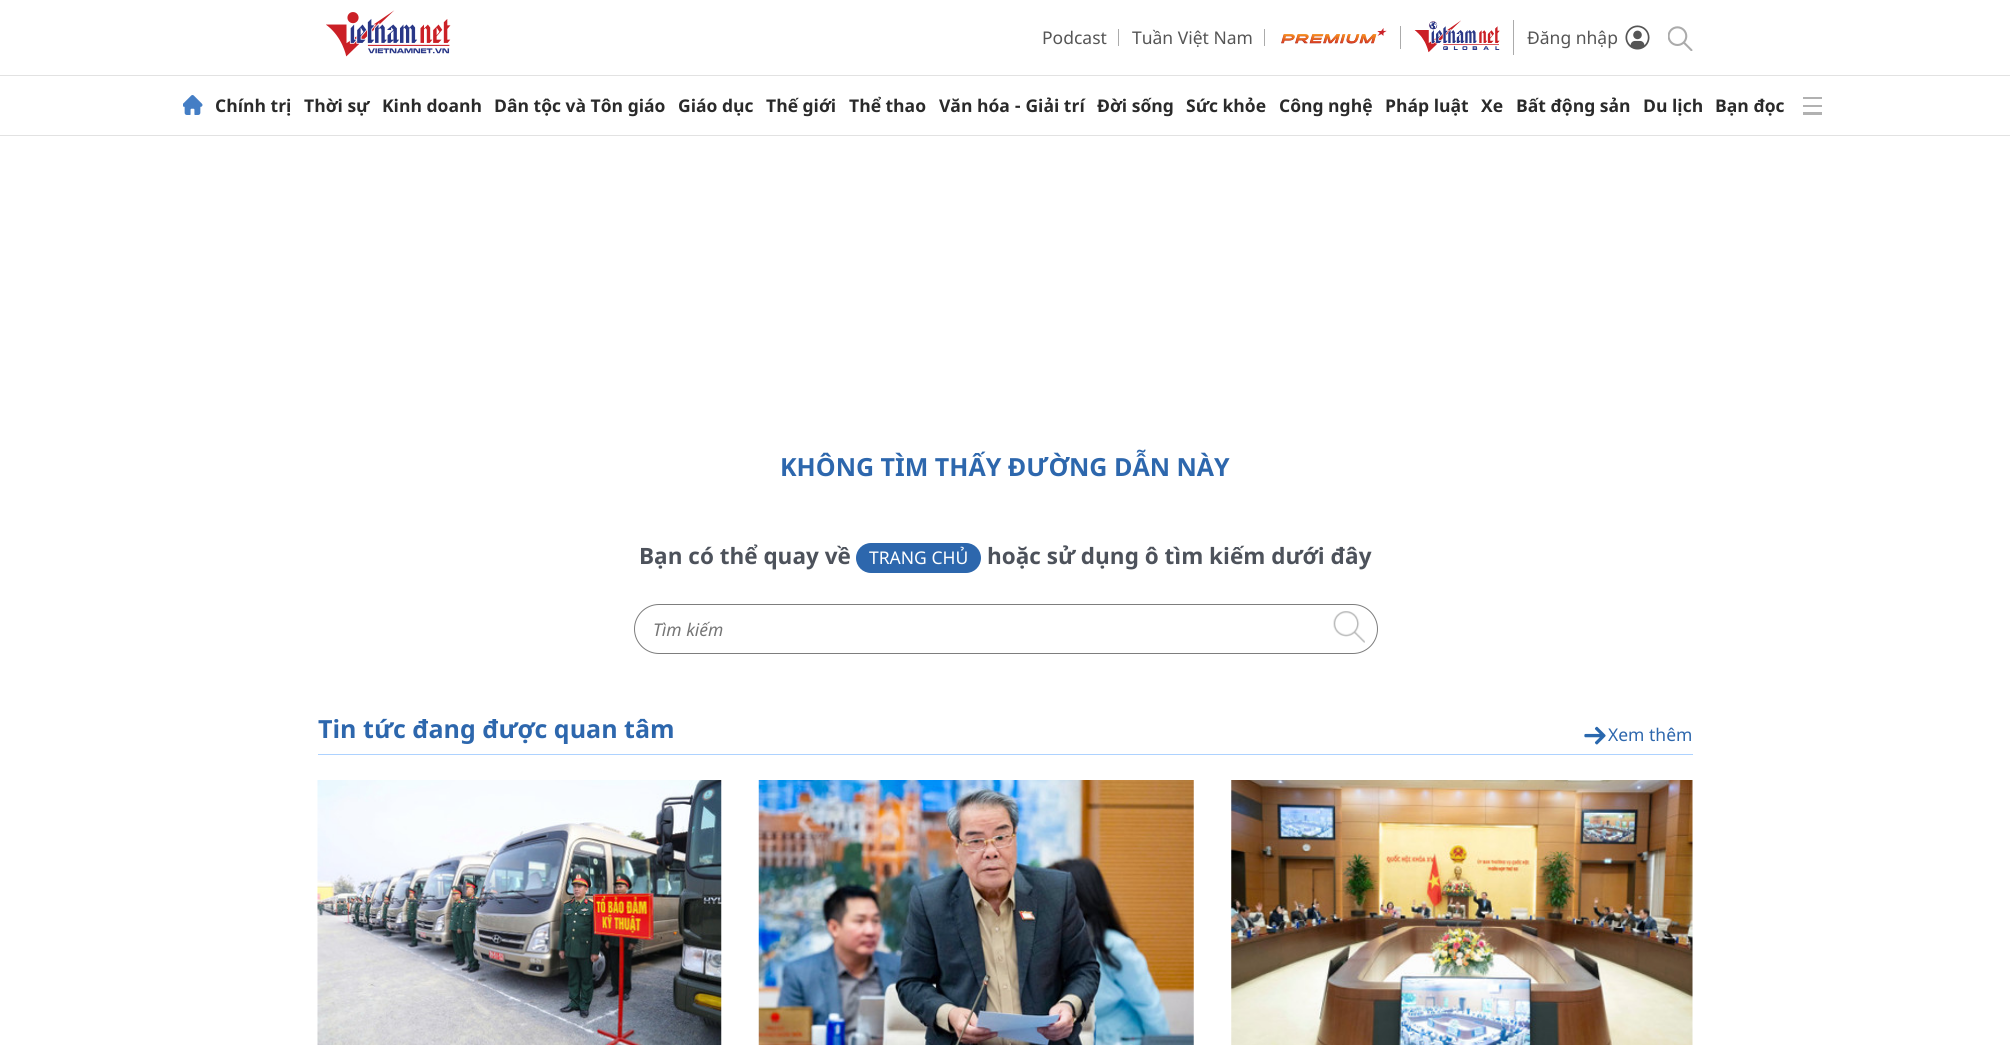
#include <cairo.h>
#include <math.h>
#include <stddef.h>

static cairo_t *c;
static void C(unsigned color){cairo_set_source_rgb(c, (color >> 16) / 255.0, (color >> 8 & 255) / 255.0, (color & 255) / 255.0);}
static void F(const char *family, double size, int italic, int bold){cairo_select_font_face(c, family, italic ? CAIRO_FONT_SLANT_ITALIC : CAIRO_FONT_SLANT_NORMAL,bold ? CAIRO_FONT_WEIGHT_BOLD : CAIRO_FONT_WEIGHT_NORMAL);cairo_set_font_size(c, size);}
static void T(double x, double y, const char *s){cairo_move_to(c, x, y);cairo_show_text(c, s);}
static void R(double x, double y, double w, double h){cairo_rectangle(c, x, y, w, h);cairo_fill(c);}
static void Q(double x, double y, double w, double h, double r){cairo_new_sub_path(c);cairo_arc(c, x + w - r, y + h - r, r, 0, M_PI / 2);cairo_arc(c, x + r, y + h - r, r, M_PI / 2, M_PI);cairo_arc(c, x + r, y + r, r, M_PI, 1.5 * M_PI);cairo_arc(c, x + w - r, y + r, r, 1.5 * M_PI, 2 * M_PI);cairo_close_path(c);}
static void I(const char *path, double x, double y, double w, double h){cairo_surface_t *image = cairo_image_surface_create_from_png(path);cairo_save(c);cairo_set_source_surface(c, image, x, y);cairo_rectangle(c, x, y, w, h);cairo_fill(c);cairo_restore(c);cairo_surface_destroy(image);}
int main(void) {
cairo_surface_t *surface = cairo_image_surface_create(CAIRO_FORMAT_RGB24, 2010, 1051);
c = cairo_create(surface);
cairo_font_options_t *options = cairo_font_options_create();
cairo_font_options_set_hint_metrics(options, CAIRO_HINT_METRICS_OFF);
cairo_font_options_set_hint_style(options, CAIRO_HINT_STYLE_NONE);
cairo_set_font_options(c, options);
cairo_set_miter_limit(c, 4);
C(0xffffff);
cairo_paint(c);
C(0xe2e2e2);
R(0,75,2010,1);
I("1.png",326,10,125,47);
F("Noto Sans",17.5,0,0);
C(0x555555);
T(1042,44,"Podcast");
C(0xababab);
R(1118,29,1,17);
C(0x555555);
T(1132,44,"Tuần Việt Nam");
C(0xababab);
R(1264,29,1,17);
I("2.png",1281,28,106,16);
R(1400,26,1,23);
I("3.png",1414,20,86,33);
R(1513,20,1,35);
C(0x555555);
T(1527,44,"Đăng nhập");
I("4.png",1625,25,25,25);
I("5.png",1668,26,25,25);
C(0xe2e2e2);
R(0,135,2010,1);
I("6.png",183,95,20,20);
F("Noto Sans",17.5,0,1);
C(0x2a2a2a);
T(215,112,"Chính trị");
T(304,112,"Thời sự");
T(382,112,"Kinh doanh");
T(494,112,"Dân tộc và Tôn giáo");
T(678,112,"Giáo dục");
T(766,112,"Thế giới");
T(849,112,"Thể thao");
T(939,112,"Văn hóa - Giải trí");
T(1097,112,"Đời sống");
T(1186,112,"Sức khỏe");
T(1279,112,"Công nghệ");
T(1385,112,"Pháp luật");
T(1481,112,"Xe");
T(1516,112,"Bất động sản");
T(1643,112,"Du lịch");
T(1715,112,"Bạn đọc");
C(0xb1b1b1);
R(1803,97,19,2);
R(1803,105,19,2);
R(1803,112,19,3);
F("Noto Sans",25,0,1);
C(0x2d67ad);
T(780,476,"KHÔNG TÌM THẤY ĐƯỜNG DẪN NÀY");
F("Noto Sans",22.5,0,1);
C(0x4d525b);
T(639,564,"Bạn có thể quay về");
C(0x2d67ad);
Q(856,543,125,30,15);
cairo_fill(c);
F("Noto Sans",17.5,0,0);
C(0xffffff);
T(869,564,"TRANG CHỦ");
F("Noto Sans",22.5,0,1);
C(0x4d525b);
T(987,564,"hoặc sử dụng ô tìm kiếm dưới đây");
Q(634.5,604.5,743,49,24.5);
C(0x7d7d7d);
cairo_set_line_width(c,1);
cairo_stroke(c);
F("Noto Sans",17.5,1,0);
C(0x757575);
T(653,636,"Tìm kiếm");
I("7.png",1333,611,32,32);
C(0xadd2ff);
R(318,754,1375,1);
F("Noto Sans",25,0,1);
C(0x2d67ad);
T(318,738,"Tin tức đang được quan tâm");
I("8.png",1584,726,22,19);
F("Noto Sans",17.5,0,0);
T(1608,741,"Xem thêm");
I("9.png",317,780,405,265);
I("10.png",758,780,436,265);
I("11.png",1231,780,462,265);
cairo_surface_write_to_png(surface, "o.png");
cairo_font_options_destroy(options);
cairo_destroy(c);
cairo_surface_destroy(surface);
return 0;
}
